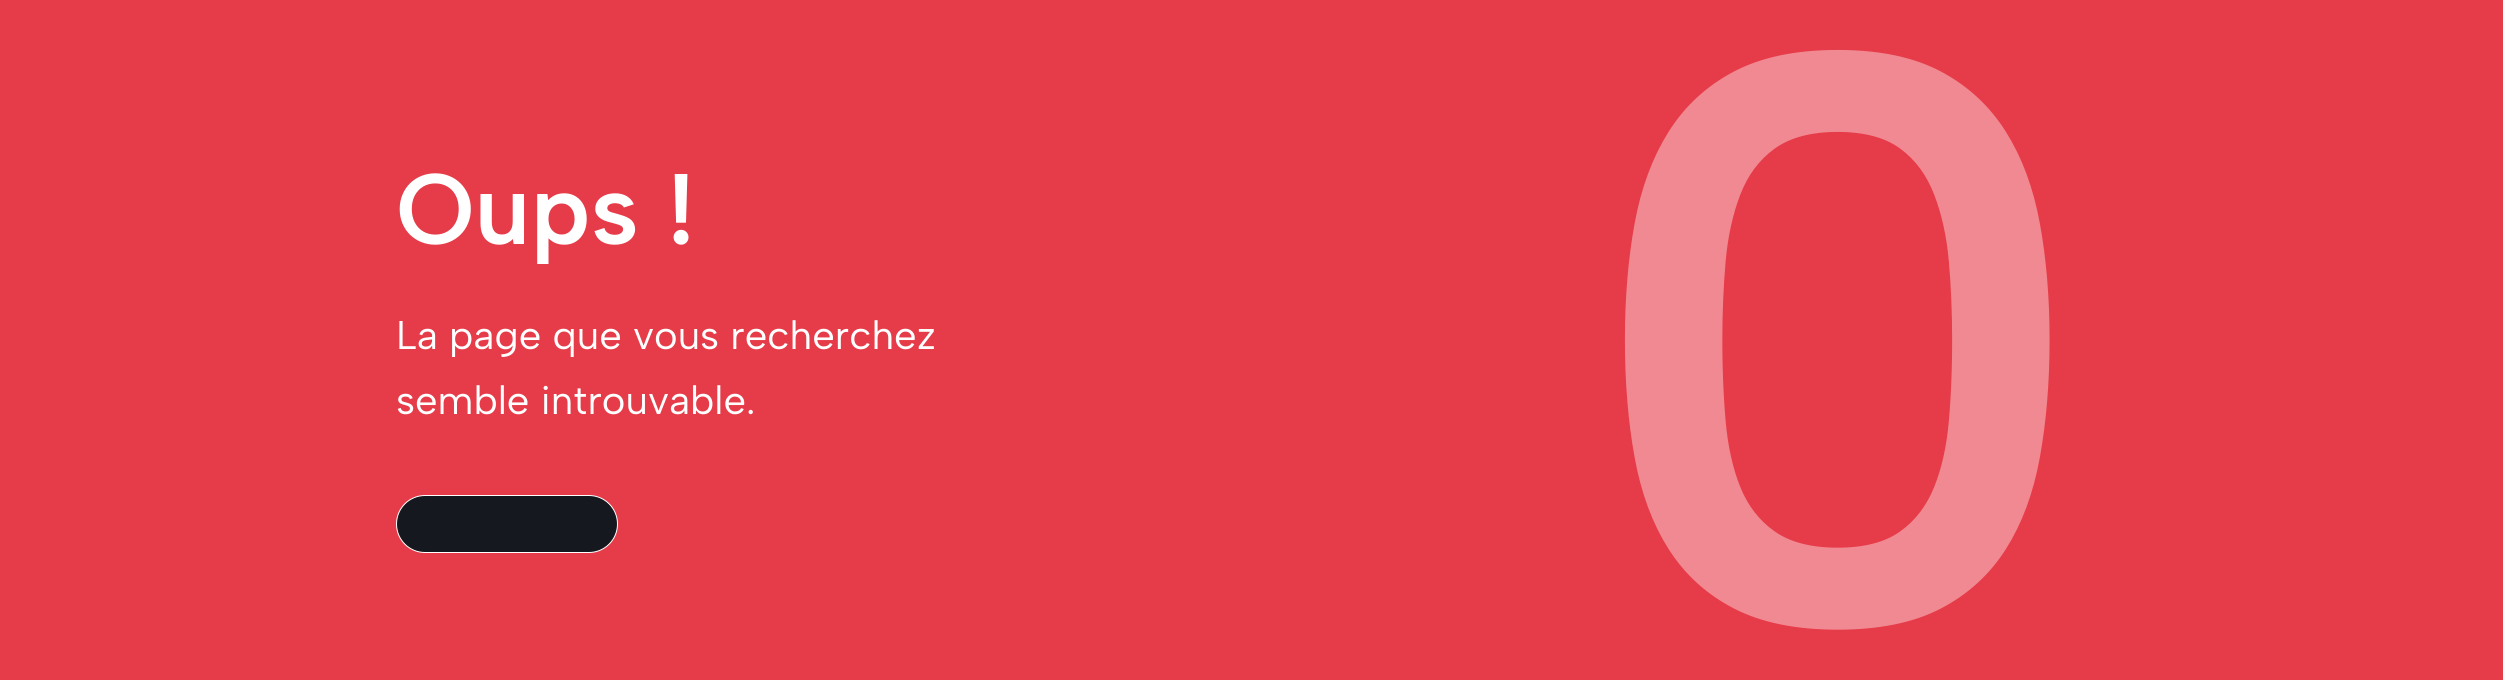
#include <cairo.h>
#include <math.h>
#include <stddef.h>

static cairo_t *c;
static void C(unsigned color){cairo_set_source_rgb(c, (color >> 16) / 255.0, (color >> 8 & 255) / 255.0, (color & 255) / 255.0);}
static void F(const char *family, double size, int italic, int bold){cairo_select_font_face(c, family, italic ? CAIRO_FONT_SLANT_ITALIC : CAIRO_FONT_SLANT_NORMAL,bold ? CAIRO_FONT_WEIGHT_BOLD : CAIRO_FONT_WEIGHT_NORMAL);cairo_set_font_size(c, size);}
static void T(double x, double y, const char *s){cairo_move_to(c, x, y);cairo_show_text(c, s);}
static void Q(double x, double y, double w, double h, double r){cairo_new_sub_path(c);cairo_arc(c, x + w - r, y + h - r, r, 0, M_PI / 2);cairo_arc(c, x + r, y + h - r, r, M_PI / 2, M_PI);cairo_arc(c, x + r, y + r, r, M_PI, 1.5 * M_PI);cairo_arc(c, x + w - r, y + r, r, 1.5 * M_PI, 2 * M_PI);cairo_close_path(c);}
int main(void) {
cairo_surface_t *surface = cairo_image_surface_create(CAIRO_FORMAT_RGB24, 2503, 680);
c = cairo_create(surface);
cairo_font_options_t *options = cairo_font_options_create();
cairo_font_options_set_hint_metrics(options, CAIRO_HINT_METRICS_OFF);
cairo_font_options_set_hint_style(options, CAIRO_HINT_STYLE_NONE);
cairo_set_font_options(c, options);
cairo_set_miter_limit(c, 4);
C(0xe63b48);
cairo_paint(c);
F("Albert Sans SemiBold",100,0,0);
C(0xffffff);
T(396,244,"Oups !");
F("Albert Sans",40,0,0);
T(396,349,"La page que vous recherchez");
T(396,414,"semble introuvable.");
C(0x16181f);
Q(396.5,495.5,221,57,28.5);
cairo_fill_preserve(c);
C(0xffffff);
cairo_set_line_width(c,1);
cairo_stroke(c);
F("Albert Sans SemiBold",812,0,0);
C(0xf08991);
T(1577,624,"0");
cairo_surface_write_to_png(surface, "o.png");
cairo_font_options_destroy(options);
cairo_destroy(c);
cairo_surface_destroy(surface);
return 0;
}
